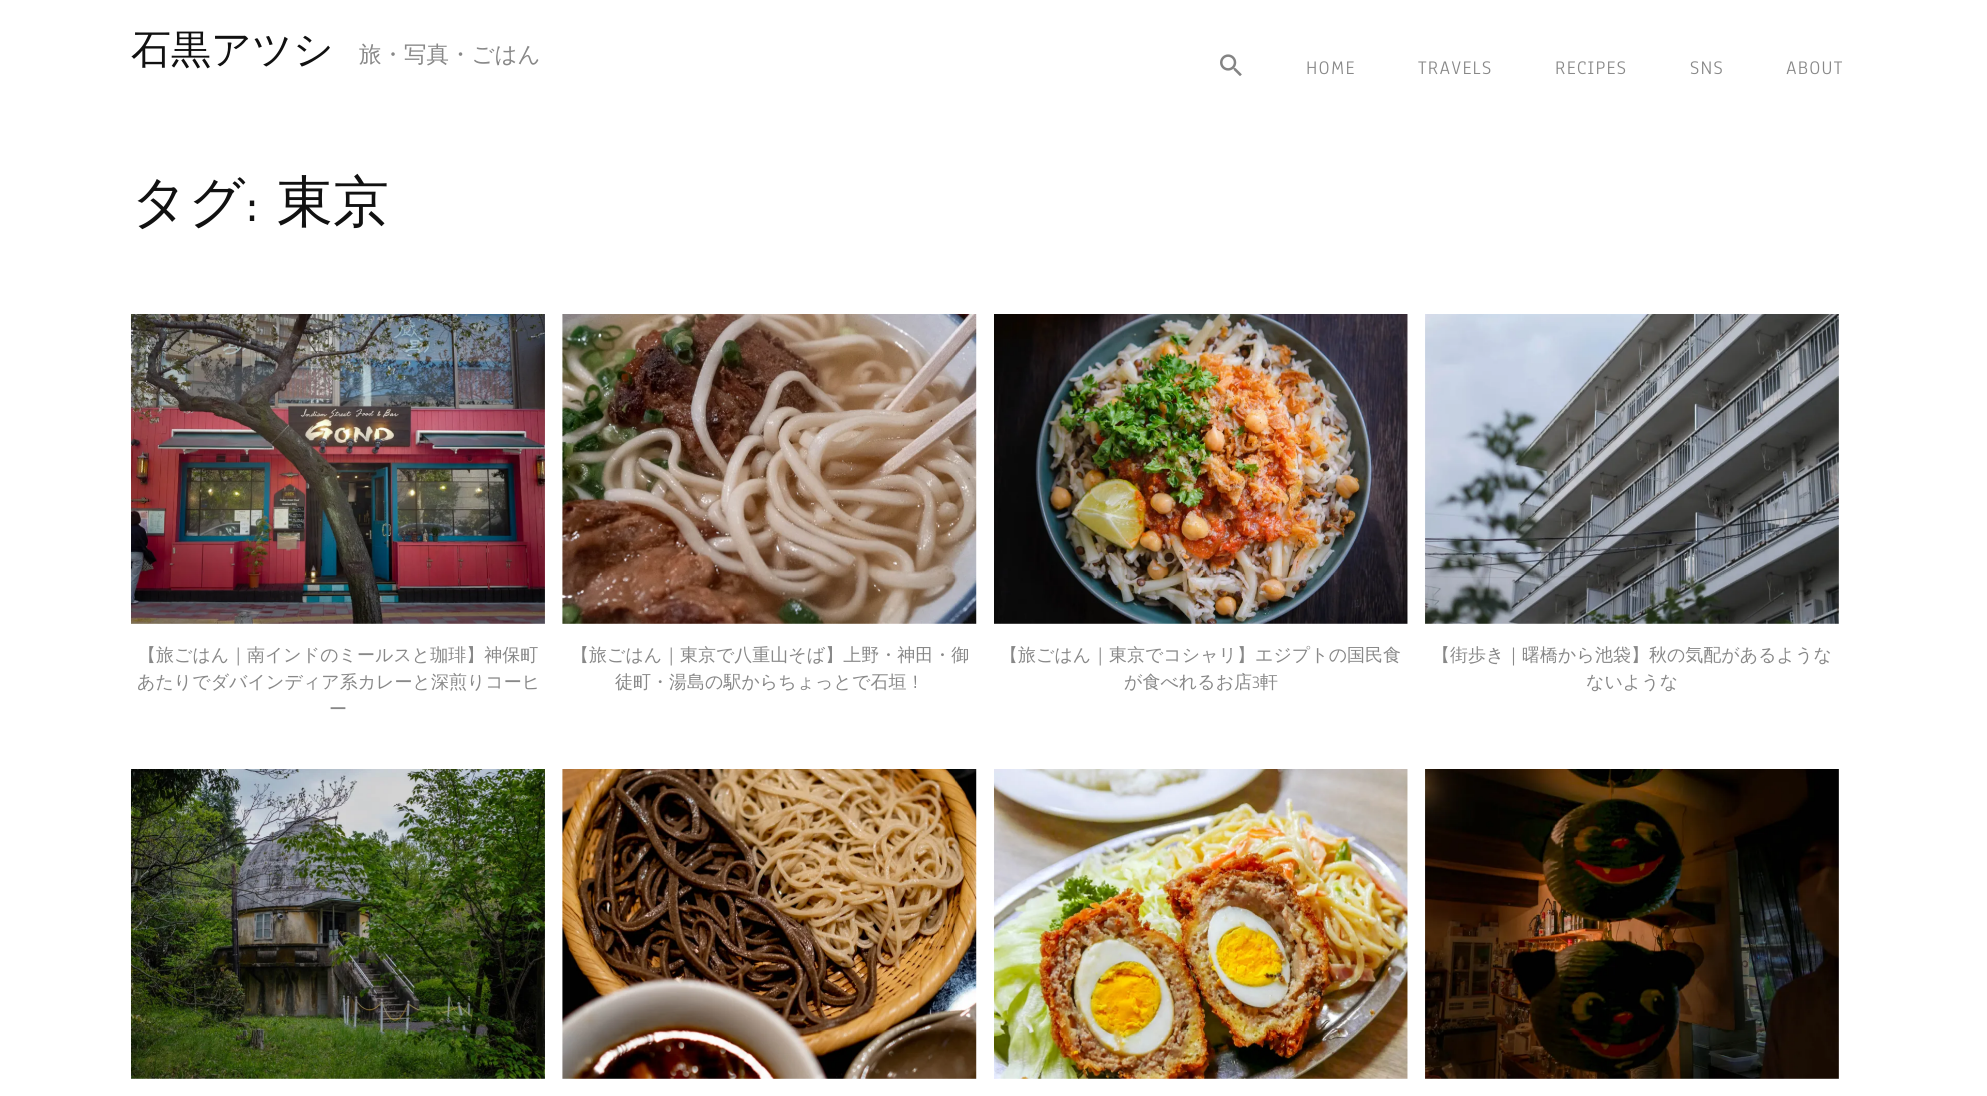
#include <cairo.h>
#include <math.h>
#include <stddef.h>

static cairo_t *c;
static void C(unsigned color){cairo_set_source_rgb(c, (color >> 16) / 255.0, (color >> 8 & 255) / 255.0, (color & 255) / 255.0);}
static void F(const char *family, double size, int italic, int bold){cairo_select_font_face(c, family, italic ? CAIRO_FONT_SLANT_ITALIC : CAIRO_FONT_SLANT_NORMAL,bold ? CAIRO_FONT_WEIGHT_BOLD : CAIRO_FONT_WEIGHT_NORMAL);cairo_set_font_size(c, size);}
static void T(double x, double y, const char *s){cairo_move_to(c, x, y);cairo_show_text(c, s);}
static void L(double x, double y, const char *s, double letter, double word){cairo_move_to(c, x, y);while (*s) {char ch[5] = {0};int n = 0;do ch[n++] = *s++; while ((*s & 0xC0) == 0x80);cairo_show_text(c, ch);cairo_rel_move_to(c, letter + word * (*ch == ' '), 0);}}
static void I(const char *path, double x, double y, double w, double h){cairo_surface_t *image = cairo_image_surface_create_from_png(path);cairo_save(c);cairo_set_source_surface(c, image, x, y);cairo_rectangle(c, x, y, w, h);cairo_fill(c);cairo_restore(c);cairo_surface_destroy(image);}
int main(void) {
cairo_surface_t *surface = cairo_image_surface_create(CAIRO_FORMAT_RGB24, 1987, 1096);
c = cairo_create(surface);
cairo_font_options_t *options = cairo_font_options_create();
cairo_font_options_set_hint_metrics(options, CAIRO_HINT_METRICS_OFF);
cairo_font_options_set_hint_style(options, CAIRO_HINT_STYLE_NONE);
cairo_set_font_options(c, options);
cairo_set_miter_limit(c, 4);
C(0xffffff);
cairo_paint(c);
F("WenQuanYi Zen Hei Medium",40,0,0);
C(0x111111);
T(131,63,"石黒アツシ");
F("WenQuanYi Zen Hei Medium",22.5,0,0);
C(0x888888);
T(359,62,"旅・写真・ごはん");
I("1.png",1220,54,22,22);
F("Anaheim",20,0,0);
L(1306,74,"HOME",1.25,0);
L(1418,74,"TRAVELS",1.25,0);
L(1555,74,"RECIPES",1.25,0);
L(1690,74,"SNS",1.25,0);
L(1786,74,"ABOUT",1.25,0);
F("WenQuanYi Zen Hei Medium",56,0,0);
C(0x111111);
T(131,221,"タグ");
F("Anaheim",56,0,0);
T(246,221,":");
F("WenQuanYi Zen Hei Medium",56,0,0);
T(277,221,"東京");
I("2.png",131,314,414,310);
F("WenQuanYi Zen Hei Medium",18,0,0);
C(0x888888);
T(138,661,"【旅ごはん｜南インドのミールスと珈琲】神保町");
T(137,688,"あたりでダバインディア系カレーと深煎りコーヒ");
T(329,715,"ー");
I("3.png",562,314,415,310);
T(571,661,"【旅ごはん｜東京で八重山そば】上野・神田・御");
T(615,688,"徒町・湯島の駅からちょっとで石垣！");
I("4.png",994,314,414,310);
T(1000,661,"【旅ごはん｜東京でコシャリ】エジプトの国民食");
T(1124,688,"が食べれるお店");
F("Anaheim",18,0,0);
T(1252,688,"3");
F("WenQuanYi Zen Hei Medium",18,0,0);
T(1260,688,"軒");
I("5.png",1425,314,414,310);
T(1432,661,"【街歩き｜曙橋から池袋】秋の気配があるような");
T(1586,688,"ないような");
I("6.png",131,769,414,310);
I("7.png",562,769,415,310);
I("8.png",994,769,414,310);
I("9.png",1425,769,414,310);
cairo_surface_write_to_png(surface, "o.png");
cairo_font_options_destroy(options);
cairo_destroy(c);
cairo_surface_destroy(surface);
return 0;
}
